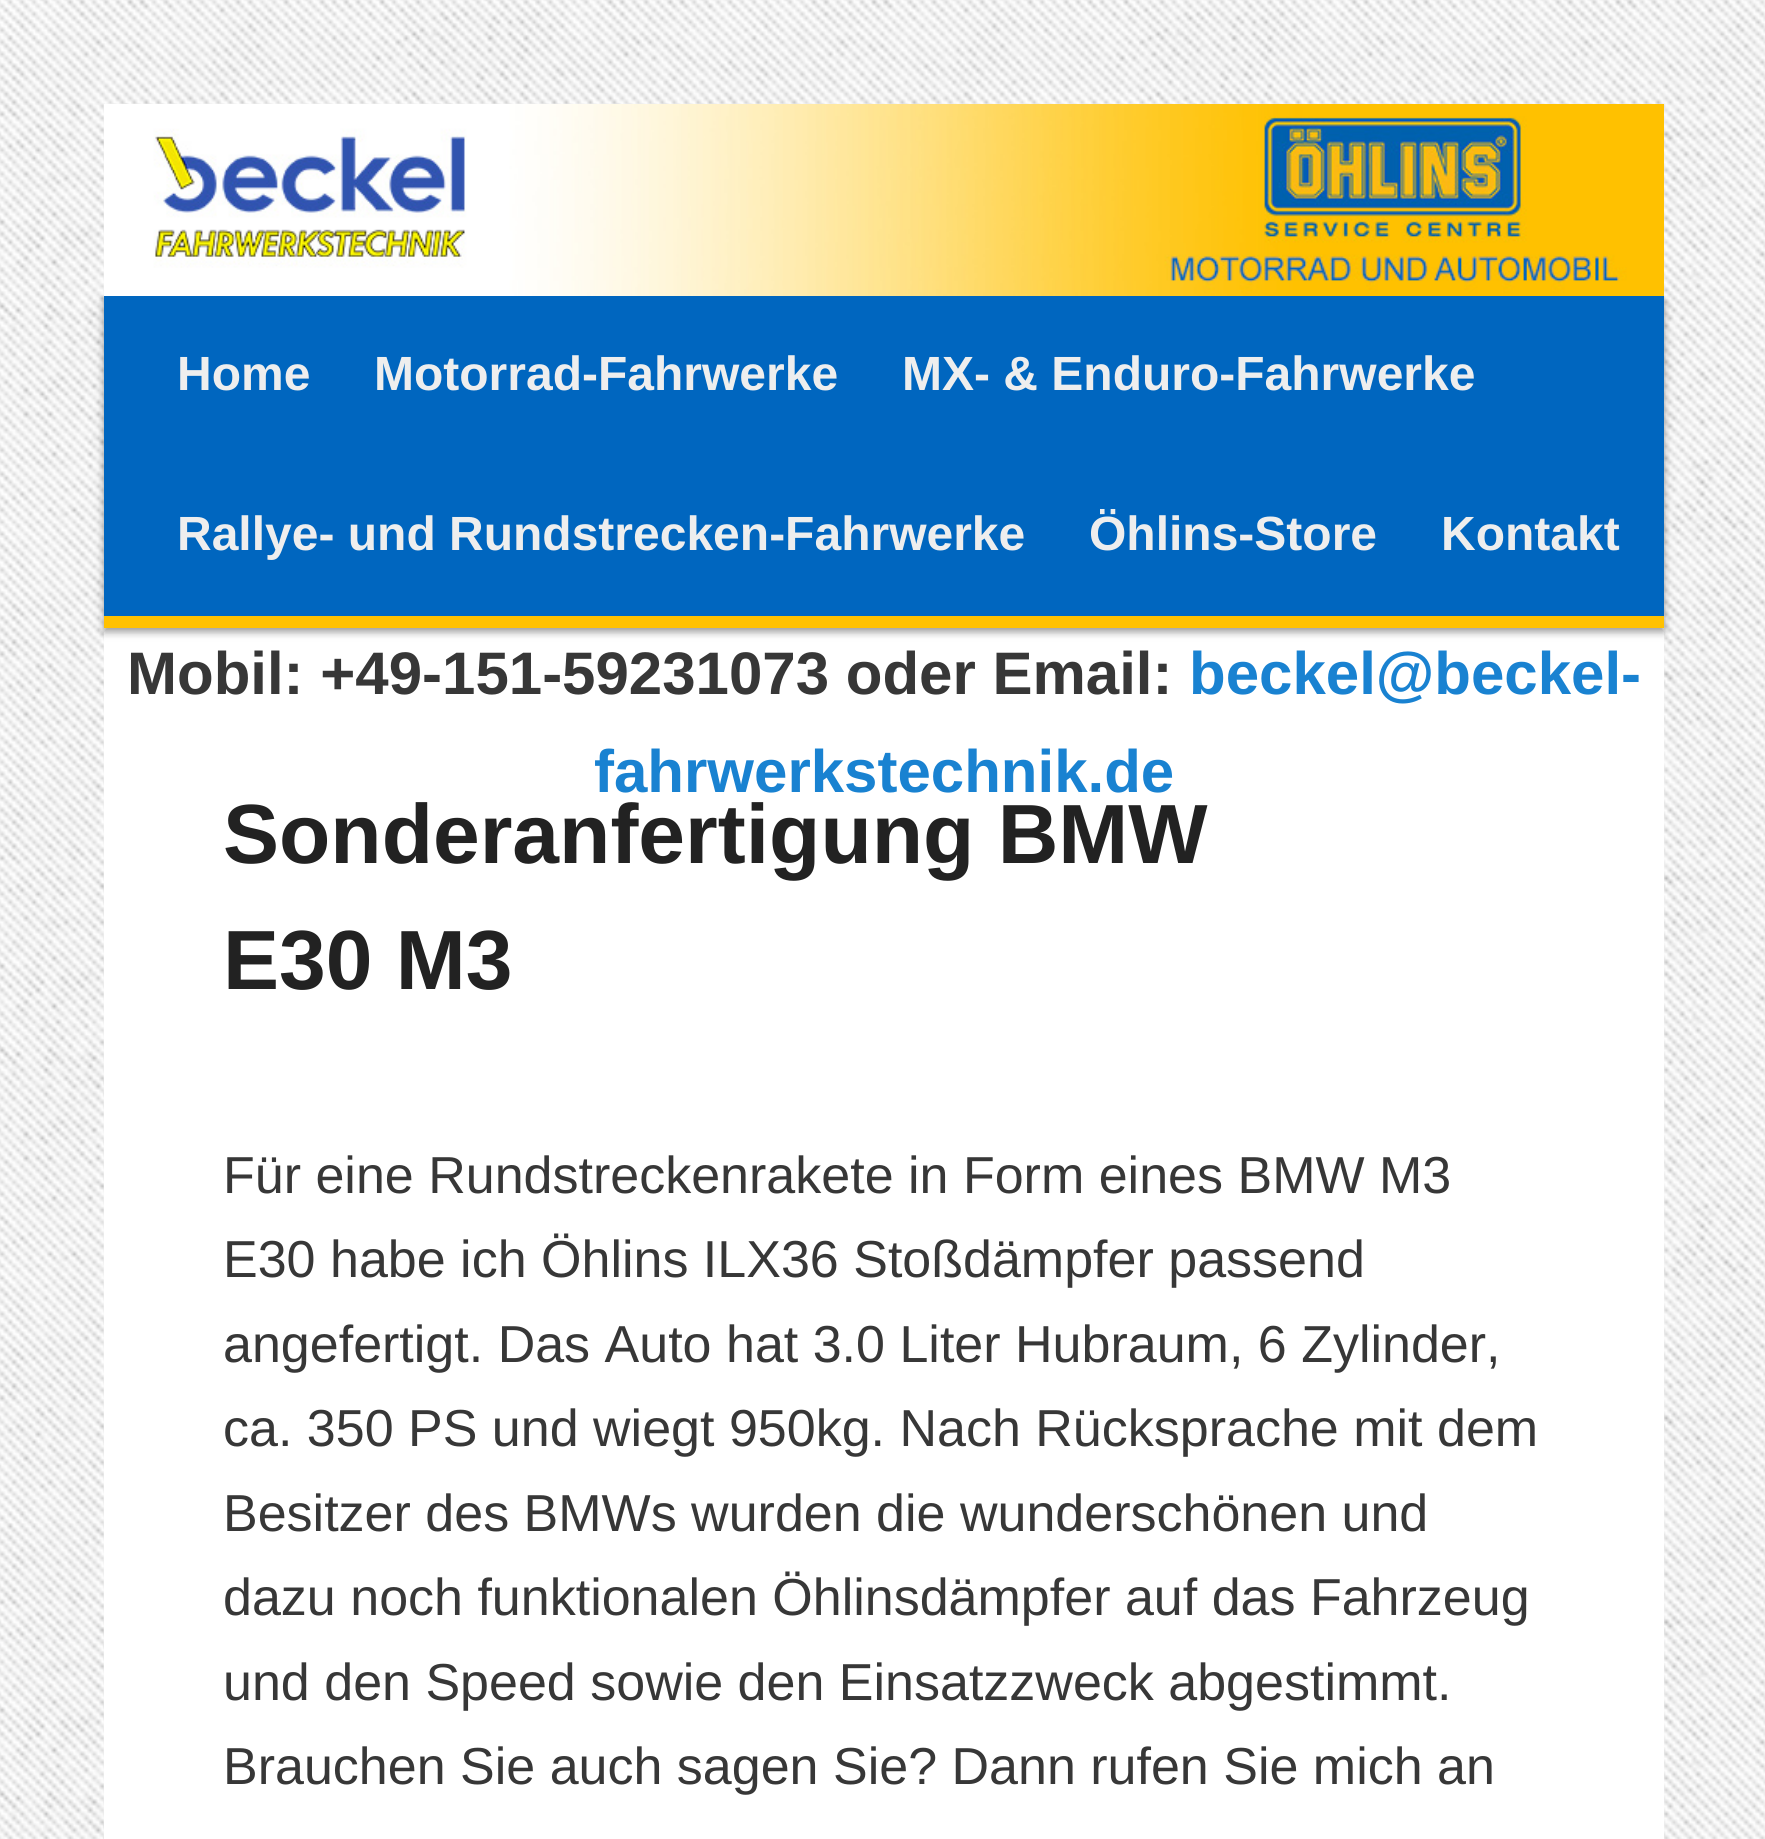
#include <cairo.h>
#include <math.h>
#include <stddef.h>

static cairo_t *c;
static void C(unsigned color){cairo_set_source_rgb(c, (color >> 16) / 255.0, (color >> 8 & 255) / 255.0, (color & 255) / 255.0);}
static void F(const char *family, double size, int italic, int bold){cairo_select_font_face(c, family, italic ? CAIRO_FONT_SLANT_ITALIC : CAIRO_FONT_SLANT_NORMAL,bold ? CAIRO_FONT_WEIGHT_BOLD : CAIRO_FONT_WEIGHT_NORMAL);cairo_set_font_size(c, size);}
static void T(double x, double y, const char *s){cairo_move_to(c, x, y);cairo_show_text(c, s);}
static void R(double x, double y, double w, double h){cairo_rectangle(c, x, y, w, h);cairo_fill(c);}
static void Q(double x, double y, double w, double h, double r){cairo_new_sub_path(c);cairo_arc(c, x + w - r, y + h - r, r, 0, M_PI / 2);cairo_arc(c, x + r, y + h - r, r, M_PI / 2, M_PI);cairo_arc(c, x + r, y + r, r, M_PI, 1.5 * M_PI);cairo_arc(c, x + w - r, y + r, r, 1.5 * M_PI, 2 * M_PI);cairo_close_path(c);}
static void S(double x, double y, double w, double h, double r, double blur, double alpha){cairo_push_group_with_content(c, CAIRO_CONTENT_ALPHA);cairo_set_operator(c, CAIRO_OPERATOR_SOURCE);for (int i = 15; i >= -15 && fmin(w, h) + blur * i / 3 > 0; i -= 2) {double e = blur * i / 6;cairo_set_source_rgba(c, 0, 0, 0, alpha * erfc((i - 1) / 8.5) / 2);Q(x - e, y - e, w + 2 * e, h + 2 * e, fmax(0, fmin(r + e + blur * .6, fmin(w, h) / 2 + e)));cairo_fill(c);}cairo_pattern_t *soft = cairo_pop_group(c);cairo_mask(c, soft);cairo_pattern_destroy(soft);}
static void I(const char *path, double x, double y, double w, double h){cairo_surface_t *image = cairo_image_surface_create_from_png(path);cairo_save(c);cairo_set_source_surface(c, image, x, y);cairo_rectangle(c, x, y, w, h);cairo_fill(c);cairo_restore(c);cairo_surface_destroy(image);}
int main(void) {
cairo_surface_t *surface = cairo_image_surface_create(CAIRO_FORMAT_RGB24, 1765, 1839);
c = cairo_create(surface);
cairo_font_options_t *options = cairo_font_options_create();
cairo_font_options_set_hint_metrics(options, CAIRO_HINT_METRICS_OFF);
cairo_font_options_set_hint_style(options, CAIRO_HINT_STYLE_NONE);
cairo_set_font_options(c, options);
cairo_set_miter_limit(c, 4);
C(0xffffff);
cairo_paint(c);
I("1.png",0,0,1765,1839);
C(0xffffff);
R(104,628,1560,1211);
C(0x000000);
S(104,300,1560,332,0,4,.4);
I("2.png",104,104,1560,192);
C(0x0066bf);
R(104,296,1560,320);
C(0xffc100);
R(104,616,1560,12);
F("Liberation Sans",48,0,1);
C(0xeeeeee);
T(177,390,"Home");
T(374,390,"Motorrad-Fahrwerke");
T(902,390,"MX- & Enduro-Fahrwerke");
T(177,550,"Rallye- und Rundstrecken-Fahrwerke");
T(1089,550,"Öhlins-Store");
T(1441,550,"Kontakt");
F("Liberation Sans",60,0,1);
C(0x373737);
T(127,694,"Mobil: +49-151-59231073 oder Email:");
C(0x1982d1);
T(1189,694,"beckel@beckel-");
T(594,792,"fahrwerkstechnik.de");
F("Liberation Sans",84,0,1);
C(0x222222);
T(223,863,"Sonderanfertigung BMW");
T(223,989,"E30 M3");
F("Liberation Sans",52,0,0);
C(0x373737);
T(223,1193,"Für eine Rundstreckenrakete in Form eines BMW M3");
T(223,1277,"E30 habe ich Öhlins ILX36 Stoßdämpfer passend");
T(223,1362,"angefertigt. Das Auto hat 3.0 Liter Hubraum, 6 Zylinder,");
T(223,1446,"ca. 350 PS und wiegt 950kg. Nach Rücksprache mit dem");
T(223,1531,"Besitzer des BMWs wurden die wunderschönen und");
T(223,1615,"dazu noch funktionalen Öhlinsdämpfer auf das Fahrzeug");
T(223,1700,"und den Speed sowie den Einsatzzweck abgestimmt.");
T(223,1784,"Brauchen Sie auch sagen Sie? Dann rufen Sie mich an");
cairo_surface_write_to_png(surface, "o.png");
cairo_font_options_destroy(options);
cairo_destroy(c);
cairo_surface_destroy(surface);
return 0;
}
